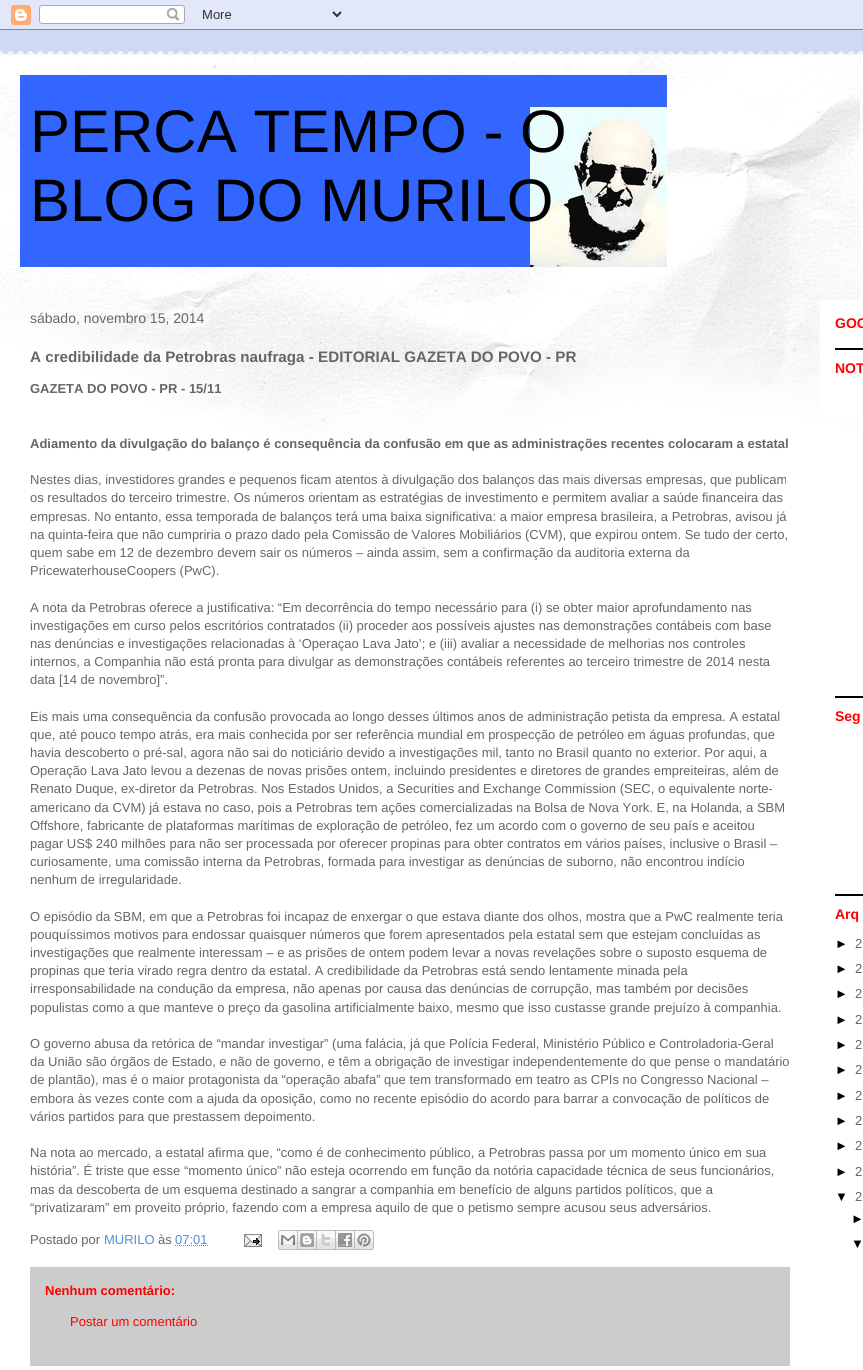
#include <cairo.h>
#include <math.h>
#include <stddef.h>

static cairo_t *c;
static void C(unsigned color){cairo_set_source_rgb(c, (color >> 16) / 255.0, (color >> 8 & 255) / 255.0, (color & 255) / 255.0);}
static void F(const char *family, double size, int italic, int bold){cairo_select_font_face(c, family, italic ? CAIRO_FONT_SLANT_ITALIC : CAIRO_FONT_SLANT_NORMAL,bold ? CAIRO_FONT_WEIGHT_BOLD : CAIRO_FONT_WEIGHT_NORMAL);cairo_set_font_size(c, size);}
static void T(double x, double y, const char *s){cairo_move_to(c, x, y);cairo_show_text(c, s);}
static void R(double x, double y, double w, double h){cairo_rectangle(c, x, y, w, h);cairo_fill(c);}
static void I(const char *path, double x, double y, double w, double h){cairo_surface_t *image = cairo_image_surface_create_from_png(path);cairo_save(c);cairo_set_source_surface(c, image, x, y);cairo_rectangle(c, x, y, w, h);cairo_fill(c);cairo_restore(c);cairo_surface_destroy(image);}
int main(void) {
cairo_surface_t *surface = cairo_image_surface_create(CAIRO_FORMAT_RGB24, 863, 1370);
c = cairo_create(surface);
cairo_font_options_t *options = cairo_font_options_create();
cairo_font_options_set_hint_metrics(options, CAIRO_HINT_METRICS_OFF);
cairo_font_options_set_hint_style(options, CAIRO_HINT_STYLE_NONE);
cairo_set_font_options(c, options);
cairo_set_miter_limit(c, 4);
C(0xcfd9f6);
cairo_paint(c);
I("1.png",0,0,863,30);
I("2.png",0,51,863,4);
C(0xffffff);
R(0,55,863,1315);
I("3.png",0,55,863,392);
I("4.png",20,75,647,192);
F("Liberation Sans",60,0,0);
C(0x000000);
T(30,152,"PERCA TEMPO - O");
T(30,221,"BLOG DO MURILO");
C(0xffffff);
R(820,300,43,116);
F("Liberation Sans",14,0,0);
C(0x666666);
T(30,323,"sábado, novembro 15, 2014");
F("Liberation Sans",15.2,0,1);
T(30,362,"A credibilidade da Petrobras naufraga - EDITORIAL GAZETA DO POVO - PR");
F("Liberation Sans",13,0,1);
T(30,393,"GAZETA DO POVO - PR - 15/11");
T(30,448,"Adiamento da divulgação do balanço é consequência da confusão em que as administrações recentes colocaram a estatal");
F("Liberation Sans",13,0,0);
T(30,484,"Nestes dias, investidores grandes e pequenos ficam atentos à divulgação dos balanços das mais diversas empresas, que publicam");
T(30,502,"os resultados do terceiro trimestre. Os números orientam as estratégias de investimento e permitem avaliar a saúde financeira das");
T(30,521,"empresas. No entanto, essa temporada de balanços terá uma baixa significativa: a maior empresa brasileira, a Petrobras, avisou já");
T(30,539,"na quinta-feira que não cumpriria o prazo dado pela Comissão de Valores Mobiliários (CVM), que expirou ontem. Se tudo der certo,");
T(30,557,"quem sabe em 12 de dezembro devem sair os números – ainda assim, sem a confirmação da auditoria externa da");
T(30,575,"PricewaterhouseCoopers (PwC).");
T(30,612,"A nota da Petrobras oferece a justificativa: “Em decorrência do tempo necessário para (i) se obter maior aprofundamento nas");
T(30,630,"investigações em curso pelos escritórios contratados (ii) proceder aos possíveis ajustes nas demonstrações contábeis com base");
T(30,648,"nas denúncias e investigações relacionadas à ‘Operaçao Lava Jato’; e (iii) avaliar a necessidade de melhorias nos controles");
T(30,666,"internos, a Companhia não está pronta para divulgar as demonstrações contábeis referentes ao terceiro trimestre de 2014 nesta");
T(30,684,"data [14 de novembro]”.");
T(30,721,"Eis mais uma consequência da confusão provocada ao longo desses últimos anos de administração petista da empresa. A estatal");
T(30,739,"que, até pouco tempo atrás, era mais conhecida por ser referência mundial em prospecção de petróleo em águas profundas, que");
T(30,757,"havia descoberto o pré-sal, agora não sai do noticiário devido a investigações mil, tanto no Brasil quanto no exterior. Por aqui, a");
T(30,775,"Operação Lava Jato levou a dezenas de novas prisões ontem, incluindo presidentes e diretores de grandes empreiteiras, além de");
T(30,793,"Renato Duque, ex-diretor da Petrobras. Nos Estados Unidos, a Securities and Exchange Commission (SEC, o equivalente norte-");
T(30,812,"americano da CVM) já estava no caso, pois a Petrobras tem ações comercializadas na Bolsa de Nova York. E, na Holanda, a SBM");
T(30,830,"Offshore, fabricante de plataformas marítimas de exploração de petróleo, fez um acordo com o governo de seu país e aceitou");
T(30,848,"pagar US$ 240 milhões para não ser processada por oferecer propinas para obter contratos em vários países, inclusive o Brasil –");
T(30,866,"curiosamente, uma comissão interna da Petrobras, formada para investigar as denúncias de suborno, não encontrou indício");
T(30,884,"nenhum de irregularidade.");
T(30,921,"O episódio da SBM, em que a Petrobras foi incapaz de enxergar o que estava diante dos olhos, mostra que a PwC realmente teria");
T(30,939,"pouquíssimos motivos para endossar quaisquer números que forem apresentados pela estatal sem que estejam concluídas as");
T(30,957,"investigações que realmente interessam – e as prisões de ontem podem levar a novas revelações sobre o suposto esquema de");
T(30,975,"propinas que teria virado regra dentro da estatal. A credibilidade da Petrobras está sendo lentamente minada pela");
T(30,993,"irresponsabilidade na condução da empresa, não apenas por causa das denúncias de corrupção, mas também por decisões");
T(30,1012,"populistas como a que manteve o preço da gasolina artificialmente baixo, mesmo que isso custasse grande prejuízo à companhia.");
T(30,1048,"O governo abusa da retórica de “mandar investigar” (uma falácia, já que Polícia Federal, Ministério Público e Controladoria-Geral");
T(30,1066,"da União são órgãos de Estado, e não de governo, e têm a obrigação de investigar independentemente do que pense o mandatário");
T(30,1084,"de plantão), mas é o maior protagonista da “operação abafa” que tem transformado em teatro as CPIs no Congresso Nacional –");
T(30,1103,"embora às vezes conte com a ajuda da oposição, como no recente episódio do acordo para barrar a convocação de políticos de");
T(30,1121,"vários partidos para que prestassem depoimento.");
T(30,1157,"Na nota ao mercado, a estatal afirma que, “como é de conhecimento público, a Petrobras passa por um momento único em sua");
T(30,1175,"história”. É triste que esse “momento único” não esteja ocorrendo em função da notória capacidade técnica de seus funcionários,");
T(30,1194,"mas da descoberta de um esquema destinado a sangrar a companhia em benefício de alguns partidos políticos, que a");
T(30,1212,"“privatizaram” em proveito próprio, fazendo com a empresa aquilo de que o petismo sempre acusou seus adversários.");
T(30,1244,"Postado por");
C(0x538cd6);
T(104,1244,"MURILO");
C(0x666666);
T(158,1244,"às");
C(0x538cd6);
T(175,1244,"07:01");
cairo_new_path(c);
cairo_move_to(c,175,1245.5);
cairo_line_to(c,208,1245.5);
cairo_set_line_width(c,1);
cairo_set_dash(c,(double[]){1,1},2,0);
cairo_stroke(c);
I("5.png",244,1234,18,13);
I("6.png",278,1230,20,20);
I("7.png",298,1230,19,20);
I("8.png",317,1230,19,20);
I("9.png",336,1230,19,20);
I("10.png",355,1230,19,20);
C(0xcccccc);
R(30,1267,760,99);
F("Liberation Sans",13,0,1);
C(0xff0000);
T(45,1295,"Nenhum comentário:");
F("Liberation Sans",13,0,0);
T(70,1326,"Postar um comentário");
C(0x000000);
R(835,348,28,2);
F("Liberation Sans",14,0,1);
C(0xff0000);
T(835,328,"GOO");
C(0x000000);
R(835,696,28,2);
C(0xff0000);
T(835,373,"NOT");
C(0x000000);
R(835,894,28,2);
C(0xff0000);
T(835,721,"Seg");
T(835,919,"Arq");
F("Liberation Sans",13,0,0);
C(0x000000);
T(835,948,"►");
C(0x666666);
T(855,948,"2");
C(0x000000);
T(835,973,"►");
C(0x666666);
T(855,973,"2");
C(0x000000);
T(835,998,"►");
C(0x666666);
T(855,998,"2");
C(0x000000);
T(835,1024,"►");
C(0x666666);
T(855,1024,"2");
C(0x000000);
T(835,1049,"►");
C(0x666666);
T(855,1049,"2");
C(0x000000);
T(835,1074,"►");
C(0x666666);
T(855,1074,"2");
C(0x000000);
T(835,1100,"►");
C(0x666666);
T(855,1100,"2");
C(0x000000);
T(835,1125,"►");
C(0x666666);
T(855,1125,"2");
C(0x000000);
T(835,1150,"►");
C(0x666666);
T(855,1150,"2");
C(0x000000);
T(835,1176,"►");
C(0x666666);
T(855,1176,"2");
C(0x000000);
T(835,1201,"▼");
C(0x666666);
T(855,1201,"2");
C(0x000000);
T(851,1223,"►");
T(851,1248,"▼");
cairo_surface_write_to_png(surface, "o.png");
cairo_font_options_destroy(options);
cairo_destroy(c);
cairo_surface_destroy(surface);
return 0;
}
